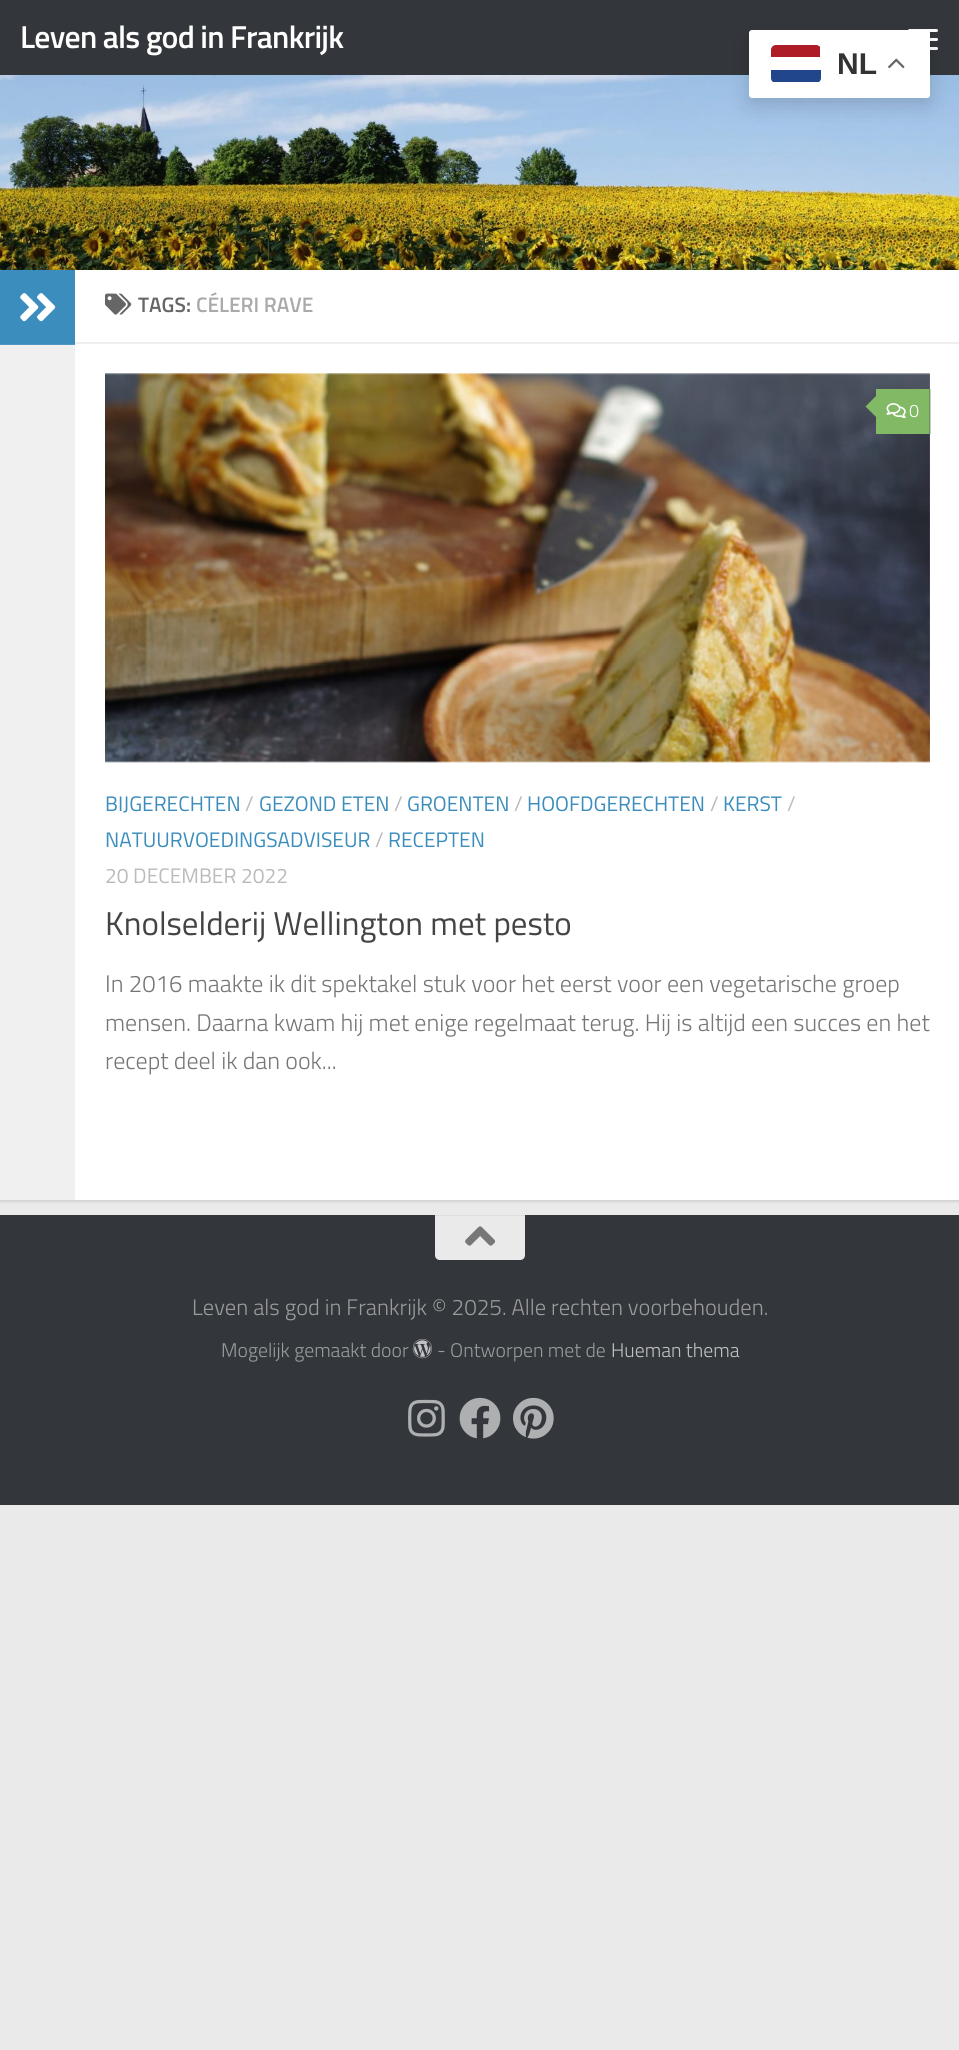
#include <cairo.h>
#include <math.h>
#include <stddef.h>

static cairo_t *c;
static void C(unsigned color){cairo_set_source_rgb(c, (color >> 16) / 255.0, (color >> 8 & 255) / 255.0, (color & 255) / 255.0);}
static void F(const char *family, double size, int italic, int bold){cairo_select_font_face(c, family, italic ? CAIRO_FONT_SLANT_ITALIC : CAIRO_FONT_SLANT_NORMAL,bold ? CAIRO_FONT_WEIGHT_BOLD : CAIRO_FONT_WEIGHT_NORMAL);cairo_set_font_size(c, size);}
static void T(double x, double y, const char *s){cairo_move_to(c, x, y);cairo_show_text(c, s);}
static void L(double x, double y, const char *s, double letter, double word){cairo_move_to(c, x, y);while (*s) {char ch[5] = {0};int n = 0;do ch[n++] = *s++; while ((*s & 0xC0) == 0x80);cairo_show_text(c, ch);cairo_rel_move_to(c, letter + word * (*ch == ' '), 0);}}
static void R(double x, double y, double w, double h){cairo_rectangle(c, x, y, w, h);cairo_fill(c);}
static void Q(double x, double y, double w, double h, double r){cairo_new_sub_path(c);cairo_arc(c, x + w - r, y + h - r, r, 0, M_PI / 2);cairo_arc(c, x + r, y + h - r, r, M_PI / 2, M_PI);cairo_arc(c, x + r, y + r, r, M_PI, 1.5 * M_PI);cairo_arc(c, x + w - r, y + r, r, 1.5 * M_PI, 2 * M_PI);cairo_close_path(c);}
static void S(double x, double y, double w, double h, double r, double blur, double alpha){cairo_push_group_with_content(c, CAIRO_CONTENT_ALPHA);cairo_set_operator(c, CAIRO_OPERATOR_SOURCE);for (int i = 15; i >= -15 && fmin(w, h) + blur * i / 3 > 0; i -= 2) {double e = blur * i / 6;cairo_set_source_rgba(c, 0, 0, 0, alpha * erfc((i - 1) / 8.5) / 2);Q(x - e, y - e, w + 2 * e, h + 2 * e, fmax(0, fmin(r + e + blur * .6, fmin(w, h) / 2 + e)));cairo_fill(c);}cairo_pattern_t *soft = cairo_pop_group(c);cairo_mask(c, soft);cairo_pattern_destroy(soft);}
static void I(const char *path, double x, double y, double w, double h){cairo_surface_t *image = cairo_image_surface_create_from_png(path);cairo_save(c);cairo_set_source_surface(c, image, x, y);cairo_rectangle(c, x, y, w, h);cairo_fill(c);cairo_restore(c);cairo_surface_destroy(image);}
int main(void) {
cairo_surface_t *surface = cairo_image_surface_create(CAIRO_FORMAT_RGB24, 959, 2050);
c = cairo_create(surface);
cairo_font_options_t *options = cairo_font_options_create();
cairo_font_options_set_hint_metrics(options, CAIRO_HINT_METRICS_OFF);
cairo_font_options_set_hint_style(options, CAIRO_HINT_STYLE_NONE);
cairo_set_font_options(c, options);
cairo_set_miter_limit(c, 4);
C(0xeaeaea);
cairo_paint(c);
C(0x33363b);
R(0,0,959,75);
F("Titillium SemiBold",31.75,0,0);
C(0xffffff);
L(20,48,"Leven als god in Frankrijk",-.75,0);
Q(908,29,30,3,1.5);
cairo_fill(c);
Q(908,38,30,3,1.5);
cairo_fill(c);
Q(908,47,30,3,1.5);
cairo_fill(c);
C(0x000000);
S(0,272,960,930,0,1,.1);
I("1.png",0,75,959,195);
C(0xffffff);
R(75,270,884,930);
C(0xf0f0f0);
R(0,346,75,854);
C(0xf2f2f2);
R(0,345,75,1);
C(0x3b8dbd);
R(0,270,75,74);
C(0x4f98c4);
R(0,344,75,1);
I("2.png",20,293,36,29);
C(0xeeeeee);
R(75,342,884,2);
I("3.png",105,293,27,22);
F("Titillium SemiBold",21,0,0);
C(0x666666);
T(138,312,"TAGS:");
C(0xaaaaaa);
T(196,312,"CÉLERI RAVE");
I("4.png",105,373,825,390);
C(0x82b965);
R(876,389,54,45);
cairo_set_source_rgba(c,0,0,0,0.2);
R(929,389,2,45);
C(0x82b965);
cairo_new_path(c);
cairo_move_to(c,879,393);
cairo_line_to(c,879,420);
cairo_line_to(c,865.5,406.5);
cairo_close_path(c);
cairo_fill(c);
I("5.png",886,403,20,16);
F("Titillium Light",18,0,0);
C(0xffffff);
T(909,417,"0");
F("Titillium",21,0,0);
C(0x3b8dbd);
T(105,811,"BIJGERECHTEN");
C(0xbbbbbb);
T(245,811,"/");
C(0x3b8dbd);
T(259,811,"GEZOND ETEN");
C(0xbbbbbb);
T(394,811,"/");
C(0x3b8dbd);
T(407,811,"GROENTEN");
C(0xbbbbbb);
T(514,811,"/");
C(0x3b8dbd);
T(527,811,"HOOFDGERECHTEN");
C(0xbbbbbb);
T(710,811,"/");
C(0x3b8dbd);
T(723,811,"KERST");
C(0xbbbbbb);
T(787,811,"/");
C(0x3b8dbd);
T(105,847,"NATUURVOEDINGSADVISEUR");
C(0xbbbbbb);
T(375,847,"/");
C(0x3b8dbd);
T(388,847,"RECEPTEN");
C(0xbbbbbb);
T(105,883,"20 DECEMBER 2022");
F("Titillium",33,0,0);
C(0x444444);
T(105,935,"Knolselderij Wellington met pesto");
F("Titillium Light",24,0,0);
C(0x767676);
T(105,992,"In 2016 maakte ik dit spektakel stuk voor het eerst voor een vegetarische groep");
T(105,1031,"mensen. Daarna kwam hij met enige regelmaat terug. Hij is altijd een succes en het");
T(105,1069,"recept deel ik dan ook...");
C(0x33363b);
R(0,1215,959,290);
C(0xeaeaea);
cairo_new_path(c);
cairo_move_to(c,435,1215);
cairo_line_to(c,525,1215);
cairo_line_to(c,525,1255);
cairo_curve_to(c,525,1258,523,1260,520,1260);
cairo_line_to(c,440,1260);
cairo_curve_to(c,437,1260,435,1258,435,1255);
cairo_close_path(c);
cairo_fill(c);
C(0xdedede);
R(435,1215,90,1);
I("6.png",465,1226,31,20);
F("Titillium Light",22.5,0,0);
C(0x999b9d);
T(192,1315,"Leven als god in Frankrijk © 2025. Alle rechten voorbehouden.");
F("Titillium Light",19.75,0,0);
T(221,1357,"Mogelijk gemaakt door");
I("7.png",412,1339,20,20);
T(437,1357,"- Ontworpen met de");
C(0xc2c3c4);
T(611,1357,"Hueman thema");
I("8.png",408,1399,37,38);
I("9.png",459,1397,42,42);
I("10.png",513,1397,41,42);
C(0x000000);
S(749,38,181,67,3,11,.15);
C(0xffffff);
Q(749,30,181,68,3);
cairo_fill(c);
cairo_save(c);
Q(771,45,50,38,5);
cairo_clip(c);
C(0x21468b);
R(771,70,50,12);
C(0xae1c28);
cairo_new_path(c);
cairo_move_to(c,776,45);
cairo_line_to(c,820,45);
cairo_line_to(c,820,57);
cairo_line_to(c,771,57);
cairo_line_to(c,771,50);
cairo_curve_to(c,771,47,773,45,776,45);
cairo_close_path(c);
cairo_fill(c);
cairo_restore(c);
F("Liberation Sans",30,0,1);
C(0x333333);
T(837,74,"NL");
I("11.png",888,58,17,11);
cairo_surface_write_to_png(surface, "o.png");
cairo_font_options_destroy(options);
cairo_destroy(c);
cairo_surface_destroy(surface);
return 0;
}
